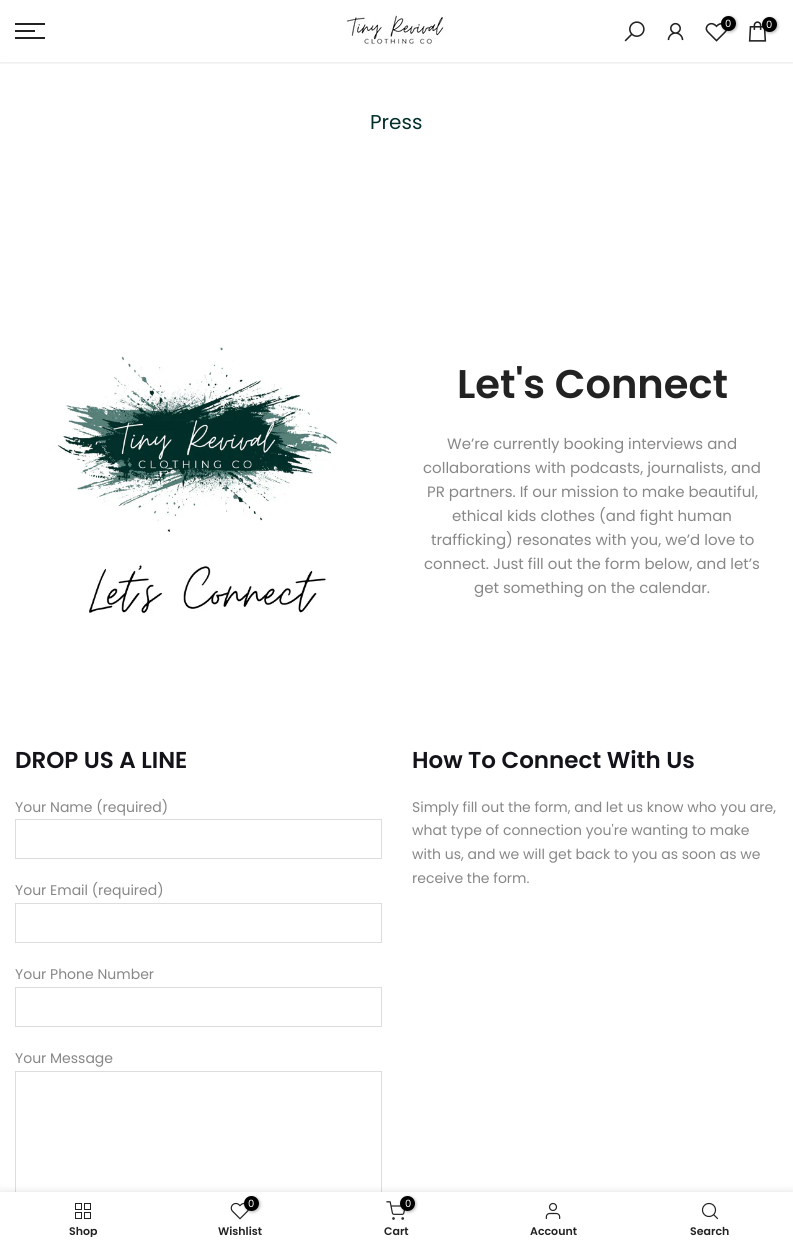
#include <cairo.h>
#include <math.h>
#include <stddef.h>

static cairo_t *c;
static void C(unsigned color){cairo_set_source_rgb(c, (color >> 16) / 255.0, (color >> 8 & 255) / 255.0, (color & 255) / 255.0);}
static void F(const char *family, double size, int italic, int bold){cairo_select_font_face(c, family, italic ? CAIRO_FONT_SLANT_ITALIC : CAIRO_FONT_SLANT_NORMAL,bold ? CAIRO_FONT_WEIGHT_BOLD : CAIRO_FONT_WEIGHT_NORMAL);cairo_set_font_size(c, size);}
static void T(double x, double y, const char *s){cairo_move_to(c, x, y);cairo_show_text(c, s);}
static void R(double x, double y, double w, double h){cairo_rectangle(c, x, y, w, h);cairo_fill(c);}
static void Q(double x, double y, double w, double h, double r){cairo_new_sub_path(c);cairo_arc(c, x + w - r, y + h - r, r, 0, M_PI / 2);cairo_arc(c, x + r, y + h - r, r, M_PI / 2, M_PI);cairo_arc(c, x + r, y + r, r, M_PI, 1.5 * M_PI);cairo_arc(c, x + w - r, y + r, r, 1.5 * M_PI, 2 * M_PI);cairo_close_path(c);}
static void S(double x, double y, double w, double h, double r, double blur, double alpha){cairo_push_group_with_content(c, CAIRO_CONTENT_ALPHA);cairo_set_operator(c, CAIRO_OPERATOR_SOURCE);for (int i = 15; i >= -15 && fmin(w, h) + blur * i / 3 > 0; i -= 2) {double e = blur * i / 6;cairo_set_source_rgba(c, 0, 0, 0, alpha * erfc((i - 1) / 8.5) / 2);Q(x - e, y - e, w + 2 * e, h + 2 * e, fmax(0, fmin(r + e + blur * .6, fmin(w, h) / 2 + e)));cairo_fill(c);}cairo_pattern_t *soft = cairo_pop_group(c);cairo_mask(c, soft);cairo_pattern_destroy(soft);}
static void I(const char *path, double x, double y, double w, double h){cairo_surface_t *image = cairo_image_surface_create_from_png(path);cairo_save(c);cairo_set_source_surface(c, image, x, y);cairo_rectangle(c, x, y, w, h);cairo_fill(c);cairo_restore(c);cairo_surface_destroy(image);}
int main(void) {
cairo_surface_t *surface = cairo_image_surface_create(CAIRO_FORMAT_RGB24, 793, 1247);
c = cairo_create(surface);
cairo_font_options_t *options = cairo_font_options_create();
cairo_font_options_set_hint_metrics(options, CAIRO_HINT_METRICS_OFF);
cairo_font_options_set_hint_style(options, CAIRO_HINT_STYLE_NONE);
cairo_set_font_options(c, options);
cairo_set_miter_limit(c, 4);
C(0xffffff);
cairo_paint(c);
cairo_save(c);
cairo_rectangle(c,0,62,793,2);
cairo_clip(c);
C(0x000000);
S(0,1,793,62,0,1.5,.1);
cairo_restore(c);
C(0x222222);
R(15,23,30,2);
R(15,30,20,2);
R(15,37,30,2);
I("1.png",346,14,100,31);
I("2.png",624,21,21,21);
I("3.png",667,22,17,19);
I("4.png",705,22,23,20);
C(0x000000);
S(722,17,15,15,7.5,1.5,.3);
C(0x000000);
cairo_arc(c,728.5,23.5,7.5,0,2 * M_PI);
cairo_fill(c);
F("Poppins",10,0,0);
C(0xffffff);
T(725,27,"0");
I("5.png",748,21,19,21);
C(0x000000);
S(763,18,15,15,7.5,1.5,.3);
C(0x000000);
cairo_arc(c,769.5,24.5,7.5,0,2 * M_PI);
cairo_fill(c);
C(0xffffff);
T(766,28,"0");
F("Poppins",20,0,0);
C(0x022f2a);
T(370,129,"Press");
I("6.png",57,347,281,267);
F("Poppins SemiBold",40,0,0);
C(0x222222);
T(457,398,"Let's Connect");
F("Poppins",15,0,0);
C(0x878787);
T(447,449,"We’re currently booking interviews and");
T(423,473,"collaborations with podcasts, journalists, and");
T(427,497,"PR partners. If our mission to make beautiful,");
T(452,521,"ethical kids clothes (and fight human");
T(431,545,"trafficking) resonates with you, we’d love to");
T(424,569,"connect. Just fill out the form below, and let’s");
T(474,593,"get something on the calendar.");
F("Poppins SemiBold",23,0,0);
C(0x131419);
T(15,768,"DROP US A LINE");
F("Poppins",14,0,0);
C(0x878787);
T(15,812,"Your Name (required)");
cairo_rectangle(c,15.5,819.5,366,39);
C(0xdddddd);
cairo_set_line_width(c,1);
cairo_stroke(c);
C(0x878787);
T(15,895,"Your Email (required)");
cairo_rectangle(c,15.5,903.5,366,39);
C(0xdddddd);
cairo_stroke(c);
C(0x878787);
T(15,979,"Your Phone Number");
cairo_rectangle(c,15.5,987.5,366,39);
C(0xdddddd);
cairo_stroke(c);
C(0x878787);
T(15,1063,"Your Message");
cairo_rectangle(c,15.5,1071.5,366,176);
C(0xdddddd);
cairo_stroke(c);
F("Poppins SemiBold",23,0,0);
C(0x131419);
T(412,768,"How To Connect With Us");
F("Poppins",14,0,0);
C(0x878787);
T(412,812,"Simply fill out the form, and let us know who you are,");
T(412,835,"what type of connection you're wanting to make");
T(412,859,"with us, and we will get back to you as soon as we");
T(412,883,"receive the form.");
C(0x000000);
S(0,1192,793,55,0,4.5,.12);
C(0xffffff);
R(0,1192,793,55);
I("7.png",75,1203,16,16);
cairo_save(c);
cairo_rectangle(c,15,1226,137,11);
cairo_clip(c);
F("Poppins SemiBold",11,0,0);
C(0x222222);
T(69,1235,"Shop");
cairo_restore(c);
I("8.png",230,1202,19,18);
C(0x000000);
S(245,1197,15,15,7.5,1.5,.3);
C(0x000000);
cairo_arc(c,251.5,1203.5,7.5,0,2 * M_PI);
cairo_fill(c);
F("Poppins",10,0,0);
C(0xffffff);
T(248,1207,"0");
F("Poppins SemiBold",11,0,0);
C(0x222222);
T(218,1235,"Wishlist");
I("9.png",386,1201,19,19);
C(0x000000);
S(401,1197,15,15,7.5,1.5,.3);
C(0x000000);
cairo_arc(c,407.5,1203.5,7.5,0,2 * M_PI);
cairo_fill(c);
F("Poppins",10,0,0);
C(0xffffff);
T(405,1207,"0");
F("Poppins SemiBold",11,0,0);
C(0x222222);
T(384,1235,"Cart");
I("10.png",545,1202,16,18);
T(530,1235,"Account");
cairo_new_path(c);
cairo_arc(c,709,1210,6.5,0,2 * M_PI);
cairo_set_line_width(c,1.2);
cairo_stroke(c);
cairo_new_path(c);
cairo_move_to(c,717.5,1218.5);
cairo_line_to(c,714,1215);
cairo_set_line_cap(c,CAIRO_LINE_CAP_ROUND);
cairo_set_line_join(c,CAIRO_LINE_JOIN_ROUND);
cairo_stroke(c);
T(690,1235,"Search");
cairo_surface_write_to_png(surface, "o.png");
cairo_font_options_destroy(options);
cairo_destroy(c);
cairo_surface_destroy(surface);
return 0;
}
